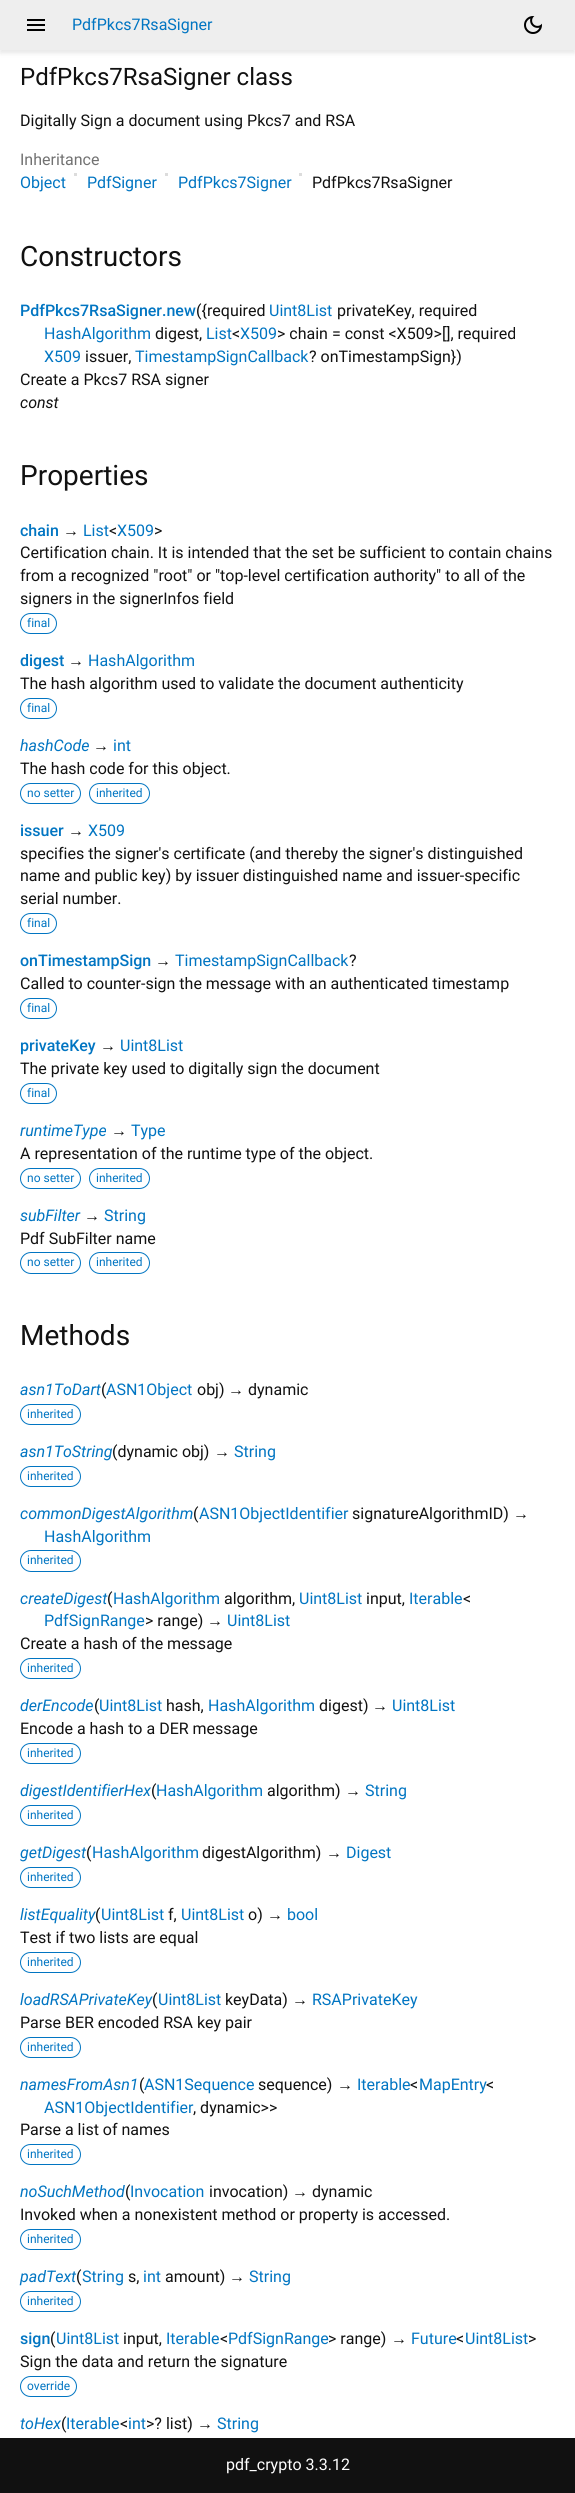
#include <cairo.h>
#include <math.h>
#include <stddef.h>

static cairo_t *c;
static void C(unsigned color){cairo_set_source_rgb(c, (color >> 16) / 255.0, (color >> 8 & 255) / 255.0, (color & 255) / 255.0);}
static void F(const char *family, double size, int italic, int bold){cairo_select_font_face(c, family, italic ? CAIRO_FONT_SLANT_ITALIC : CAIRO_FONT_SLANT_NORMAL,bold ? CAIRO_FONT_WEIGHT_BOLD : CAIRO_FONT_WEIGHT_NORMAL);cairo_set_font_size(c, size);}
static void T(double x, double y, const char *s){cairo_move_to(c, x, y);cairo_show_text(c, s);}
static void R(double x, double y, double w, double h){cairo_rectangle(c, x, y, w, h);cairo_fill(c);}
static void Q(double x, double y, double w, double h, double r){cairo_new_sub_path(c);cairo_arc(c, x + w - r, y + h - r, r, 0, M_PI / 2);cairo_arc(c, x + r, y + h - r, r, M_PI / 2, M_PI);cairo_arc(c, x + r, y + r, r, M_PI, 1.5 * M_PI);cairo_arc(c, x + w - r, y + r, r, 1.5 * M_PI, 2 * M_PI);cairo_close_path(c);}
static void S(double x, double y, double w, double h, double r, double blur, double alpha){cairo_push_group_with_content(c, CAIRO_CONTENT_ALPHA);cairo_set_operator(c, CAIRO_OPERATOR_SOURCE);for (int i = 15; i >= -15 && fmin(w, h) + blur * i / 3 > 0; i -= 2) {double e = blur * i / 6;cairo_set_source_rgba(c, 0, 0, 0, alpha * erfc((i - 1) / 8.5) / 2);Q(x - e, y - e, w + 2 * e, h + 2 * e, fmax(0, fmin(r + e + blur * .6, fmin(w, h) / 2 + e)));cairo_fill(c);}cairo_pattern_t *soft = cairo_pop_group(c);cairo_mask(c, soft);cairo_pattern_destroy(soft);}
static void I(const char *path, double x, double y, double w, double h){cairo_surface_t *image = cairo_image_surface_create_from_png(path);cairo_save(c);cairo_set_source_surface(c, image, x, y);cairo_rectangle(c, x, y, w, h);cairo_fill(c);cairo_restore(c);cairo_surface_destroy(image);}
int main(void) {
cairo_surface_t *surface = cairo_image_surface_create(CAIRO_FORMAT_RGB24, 575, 2493);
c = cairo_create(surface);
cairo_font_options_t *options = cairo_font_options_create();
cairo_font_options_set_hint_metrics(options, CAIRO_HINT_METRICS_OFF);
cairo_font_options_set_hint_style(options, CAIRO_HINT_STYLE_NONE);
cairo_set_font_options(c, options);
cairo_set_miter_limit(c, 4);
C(0xffffff);
cairo_paint(c);
C(0x000000);
S(0,3,575,50,0,2.5,.1);
C(0xeeeeee);
R(0,0,575,50);
I("1.png",27,19,18,12);
F("Roboto",16,0,0);
C(0x0175c2);
T(72,30,"PdfPkcs7RsaSigner");
I("2.png",524,16,18,18);
F("Roboto",24,0,0);
C(0x111111);
T(20,85,"PdfPkcs7RsaSigner class");
F("Roboto",16,0,0);
T(20,126,"Digitally Sign a document using Pkcs7 and RSA");
C(0x727272);
T(20,165,"Inheritance");
C(0x0175c2);
T(20,188,"Object");
C(0xdcdcdc);
R(74,173,3,3);
C(0x0175c2);
T(87,188,"PdfSigner");
C(0xdcdcdc);
R(165,173,3,3);
C(0x0175c2);
T(178,188,"PdfPkcs7Signer");
C(0xdcdcdc);
R(299,173,3,3);
C(0x111111);
T(312,188,"PdfPkcs7RsaSigner");
F("Roboto",28,0,0);
T(20,266,"Constructors");
F("Roboto Medium",16,0,0);
C(0x0175c2);
T(20,316,"PdfPkcs7RsaSigner.new");
F("Roboto",16,0,0);
C(0x111111);
T(196,316,"({required");
C(0x0175c2);
T(269,316,"Uint8List");
C(0x111111);
T(337,316,"privateKey, required");
C(0x0175c2);
T(44,339,"HashAlgorithm");
C(0x111111);
T(155,339,"digest,");
C(0x0175c2);
T(206,339,"List");
C(0x111111);
T(232,339,"<");
C(0x0175c2);
T(240,339,"X509");
C(0x111111);
T(277,339,"> chain = const <X509>[], required");
C(0x0175c2);
T(44,362,"X509");
C(0x111111);
T(85,362,"issuer,");
C(0x0175c2);
T(135,362,"TimestampSignCallback");
C(0x111111);
T(309,362,"? onTimestampSign})");
T(20,385,"Create a Pkcs7 RSA signer");
F("Roboto",16,1,0);
T(20,408,"const");
F("Roboto",28,0,0);
T(20,485,"Properties");
F("Roboto Medium",16,0,0);
C(0x0175c2);
T(20,536,"chain");
F("Liberation Sans",16,0,0);
C(0x111111);
T(63,536,"→");
F("Roboto",16,0,0);
C(0x0175c2);
T(83,536,"List");
C(0x111111);
T(109,536,"<");
C(0x0175c2);
T(117,536,"X509");
C(0x111111);
T(154,536,">");
T(20,558,"Certification chain. It is intended that the set be sufficient to contain chains");
T(20,581,"from a recognized \"root\" or \"top-level certification authority\" to all of the");
T(20,604,"signers in the signerInfos field");
Q(20.5,613.5,36,20,10);
C(0x0175c2);
cairo_set_line_width(c,1);
cairo_stroke(c);
F("Roboto",12,0,0);
T(27,627,"final");
F("Roboto Medium",16,0,0);
T(20,666,"digest");
F("Liberation Sans",16,0,0);
C(0x111111);
T(68,666,"→");
F("Roboto",16,0,0);
C(0x0175c2);
T(88,666,"HashAlgorithm");
C(0x111111);
T(20,689,"The hash algorithm used to validate the document authenticity");
Q(20.5,698.5,36,20,10);
C(0x0175c2);
cairo_stroke(c);
F("Roboto",12,0,0);
T(27,712,"final");
F("Roboto",16,1,0);
T(20,751,"hashCode");
F("Liberation Sans",16,0,0);
C(0x111111);
T(93,751,"→");
F("Roboto",16,0,0);
C(0x0175c2);
T(113,751,"int");
C(0x111111);
T(20,774,"The hash code for this object.");
Q(20.5,783.5,60,20,10);
C(0x0175c2);
cairo_stroke(c);
F("Roboto",12,0,0);
T(27,797,"no setter");
Q(89.5,783.5,60,20,10);
cairo_stroke(c);
T(96,797,"inherited");
F("Roboto Medium",16,0,0);
T(20,836,"issuer");
F("Liberation Sans",16,0,0);
C(0x111111);
T(68,836,"→");
F("Roboto",16,0,0);
C(0x0175c2);
T(88,836,"X509");
C(0x111111);
T(20,859,"specifies the signer's certificate (and thereby the signer's distinguished");
T(20,881,"name and public key) by issuer distinguished name and issuer-specific");
T(20,904,"serial number.");
Q(20.5,913.5,36,20,10);
C(0x0175c2);
cairo_stroke(c);
F("Roboto",12,0,0);
T(27,927,"final");
F("Roboto Medium",16,0,0);
T(20,966,"onTimestampSign");
F("Liberation Sans",16,0,0);
C(0x111111);
T(155,966,"→");
F("Roboto",16,0,0);
C(0x0175c2);
T(175,966,"TimestampSignCallback");
C(0x111111);
T(349,966,"?");
T(20,989,"Called to counter-sign the message with an authenticated timestamp");
Q(20.5,998.5,36,20,10);
C(0x0175c2);
cairo_stroke(c);
F("Roboto",12,0,0);
T(27,1012,"final");
F("Roboto Medium",16,0,0);
T(20,1051,"privateKey");
F("Liberation Sans",16,0,0);
C(0x111111);
T(100,1051,"→");
F("Roboto",16,0,0);
C(0x0175c2);
T(120,1051,"Uint8List");
C(0x111111);
T(20,1074,"The private key used to digitally sign the document");
Q(20.5,1083.5,36,20,10);
C(0x0175c2);
cairo_stroke(c);
F("Roboto",12,0,0);
T(27,1097,"final");
F("Roboto",16,1,0);
T(20,1136,"runtimeType");
F("Liberation Sans",16,0,0);
C(0x111111);
T(111,1136,"→");
F("Roboto",16,0,0);
C(0x0175c2);
T(131,1136,"Type");
C(0x111111);
T(20,1159,"A representation of the runtime type of the object.");
Q(20.5,1168.5,60,20,10);
C(0x0175c2);
cairo_stroke(c);
F("Roboto",12,0,0);
T(27,1182,"no setter");
Q(89.5,1168.5,60,20,10);
cairo_stroke(c);
T(96,1182,"inherited");
F("Roboto",16,1,0);
T(20,1221,"subFilter");
F("Liberation Sans",16,0,0);
C(0x111111);
T(84,1221,"→");
F("Roboto",16,0,0);
C(0x0175c2);
T(104,1221,"String");
C(0x111111);
T(20,1244,"Pdf SubFilter name");
Q(20.5,1252.5,60,21,10.5);
C(0x0175c2);
cairo_stroke(c);
F("Roboto",12,0,0);
T(27,1266,"no setter");
Q(89.5,1252.5,60,21,10.5);
cairo_stroke(c);
T(96,1266,"inherited");
F("Roboto",28,0,0);
C(0x111111);
T(20,1345,"Methods");
F("Roboto",16,1,0);
C(0x0175c2);
T(20,1395,"asn1ToDart");
F("Roboto",16,0,0);
C(0x111111);
T(101,1395,"(");
C(0x0175c2);
T(106,1395,"ASN1Object");
C(0x111111);
T(197,1395,"obj)");
F("Liberation Sans",16,0,0);
T(228,1395,"→");
F("Roboto",16,0,0);
T(248,1395,"dynamic");
Q(20.5,1404.5,60,20,10);
C(0x0175c2);
cairo_stroke(c);
F("Roboto",12,0,0);
T(27,1418,"inherited");
F("Roboto",16,1,0);
T(20,1457,"asn1ToString");
F("Roboto",16,0,0);
C(0x111111);
T(112,1457,"(dynamic obj)");
F("Liberation Sans",16,0,0);
T(214,1457,"→");
F("Roboto",16,0,0);
C(0x0175c2);
T(234,1457,"String");
Q(20.5,1466.5,60,20,10);
cairo_stroke(c);
F("Roboto",12,0,0);
T(27,1480,"inherited");
F("Roboto",16,1,0);
T(20,1519,"commonDigestAlgorithm");
F("Roboto",16,0,0);
C(0x111111);
T(193,1519,"(");
C(0x0175c2);
T(199,1519,"ASN1ObjectIdentifier");
C(0x111111);
T(352,1519,"signatureAlgorithmID)");
F("Liberation Sans",16,0,0);
T(513,1519,"→");
F("Roboto",16,0,0);
C(0x0175c2);
T(44,1542,"HashAlgorithm");
Q(20.5,1550.5,60,21,10.5);
cairo_stroke(c);
F("Roboto",12,0,0);
T(27,1564,"inherited");
F("Roboto",16,1,0);
T(20,1604,"createDigest");
F("Roboto",16,0,0);
C(0x111111);
T(107,1604,"(");
C(0x0175c2);
T(113,1604,"HashAlgorithm");
C(0x111111);
T(224,1604,"algorithm,");
C(0x0175c2);
T(299,1604,"Uint8List");
C(0x111111);
T(366,1604,"input,");
C(0x0175c2);
T(409,1604,"Iterable");
C(0x111111);
T(463,1604,"<");
C(0x0175c2);
T(44,1626,"PdfSignRange");
C(0x111111);
T(145,1626,"> range)");
F("Liberation Sans",16,0,0);
T(207,1626,"→");
F("Roboto",16,0,0);
C(0x0175c2);
T(227,1626,"Uint8List");
C(0x111111);
T(20,1649,"Create a hash of the message");
Q(20.5,1658.5,60,20,10);
C(0x0175c2);
cairo_stroke(c);
F("Roboto",12,0,0);
T(27,1672,"inherited");
F("Roboto",16,1,0);
T(20,1711,"derEncode");
F("Roboto",16,0,0);
C(0x111111);
T(94,1711,"(");
C(0x0175c2);
T(99,1711,"Uint8List");
C(0x111111);
T(166,1711,"hash,");
C(0x0175c2);
T(208,1711,"HashAlgorithm");
C(0x111111);
T(319,1711,"digest)");
F("Liberation Sans",16,0,0);
T(372,1711,"→");
F("Roboto",16,0,0);
C(0x0175c2);
T(392,1711,"Uint8List");
C(0x111111);
T(20,1734,"Encode a hash to a DER message");
Q(20.5,1743.5,60,20,10);
C(0x0175c2);
cairo_stroke(c);
F("Roboto",12,0,0);
T(27,1757,"inherited");
F("Roboto",16,1,0);
T(20,1796,"digestIdentifierHex");
F("Roboto",16,0,0);
C(0x111111);
T(151,1796,"(");
C(0x0175c2);
T(156,1796,"HashAlgorithm");
C(0x111111);
T(267,1796,"algorithm)");
F("Liberation Sans",16,0,0);
T(345,1796,"→");
F("Roboto",16,0,0);
C(0x0175c2);
T(365,1796,"String");
Q(20.5,1805.5,60,20,10);
cairo_stroke(c);
F("Roboto",12,0,0);
T(27,1819,"inherited");
F("Roboto",16,1,0);
T(20,1858,"getDigest");
F("Roboto",16,0,0);
C(0x111111);
T(86,1858,"(");
C(0x0175c2);
T(92,1858,"HashAlgorithm");
C(0x111111);
T(202,1858,"digestAlgorithm)");
F("Liberation Sans",16,0,0);
T(326,1858,"→");
F("Roboto",16,0,0);
C(0x0175c2);
T(346,1858,"Digest");
Q(20.5,1867.5,60,20,10);
cairo_stroke(c);
F("Roboto",12,0,0);
T(27,1881,"inherited");
F("Roboto",16,1,0);
T(20,1920,"listEquality");
F("Roboto",16,0,0);
C(0x111111);
T(95,1920,"(");
C(0x0175c2);
T(101,1920,"Uint8List");
C(0x111111);
T(168,1920,"f,");
C(0x0175c2);
T(181,1920,"Uint8List");
C(0x111111);
T(248,1920,"o)");
F("Liberation Sans",16,0,0);
T(267,1920,"→");
F("Roboto",16,0,0);
C(0x0175c2);
T(287,1920,"bool");
C(0x111111);
T(20,1943,"Test if two lists are equal");
Q(20.5,1952.5,60,20,10);
C(0x0175c2);
cairo_stroke(c);
F("Roboto",12,0,0);
T(27,1966,"inherited");
F("Roboto",16,1,0);
T(20,2005,"loadRSAPrivateKey");
F("Roboto",16,0,0);
C(0x111111);
T(152,2005,"(");
C(0x0175c2);
T(158,2005,"Uint8List");
C(0x111111);
T(225,2005,"keyData)");
F("Liberation Sans",16,0,0);
T(292,2005,"→");
F("Roboto",16,0,0);
C(0x0175c2);
T(312,2005,"RSAPrivateKey");
C(0x111111);
T(20,2028,"Parse BER encoded RSA key pair");
Q(20.5,2037.5,60,20,10);
C(0x0175c2);
cairo_stroke(c);
F("Roboto",12,0,0);
T(27,2051,"inherited");
F("Roboto",16,1,0);
T(20,2090,"namesFromAsn1");
F("Roboto",16,0,0);
C(0x111111);
T(139,2090,"(");
C(0x0175c2);
T(144,2090,"ASN1Sequence");
C(0x111111);
T(258,2090,"sequence)");
F("Liberation Sans",16,0,0);
T(337,2090,"→");
F("Roboto",16,0,0);
C(0x0175c2);
T(357,2090,"Iterable");
C(0x111111);
T(410,2090,"<");
C(0x0175c2);
T(419,2090,"MapEntry");
C(0x111111);
T(486,2090,"<");
C(0x0175c2);
T(44,2113,"ASN1ObjectIdentifier");
C(0x111111);
T(193,2113,", dynamic>>");
T(20,2135,"Parse a list of names");
Q(20.5,2144.5,60,20,10);
C(0x0175c2);
cairo_stroke(c);
F("Roboto",12,0,0);
T(27,2158,"inherited");
F("Roboto",16,1,0);
T(20,2197,"noSuchMethod");
F("Roboto",16,0,0);
C(0x111111);
T(125,2197,"(");
C(0x0175c2);
T(130,2197,"Invocation");
C(0x111111);
T(209,2197,"invocation)");
F("Liberation Sans",16,0,0);
T(292,2197,"→");
F("Roboto",16,0,0);
T(312,2197,"dynamic");
T(20,2220,"Invoked when a nonexistent method or property is accessed.");
Q(20.5,2229.5,60,20,10);
C(0x0175c2);
cairo_stroke(c);
F("Roboto",12,0,0);
T(27,2243,"inherited");
F("Roboto",16,1,0);
T(20,2282,"padText");
F("Roboto",16,0,0);
C(0x111111);
T(76,2282,"(");
C(0x0175c2);
T(82,2282,"String");
C(0x111111);
T(128,2282,"s,");
C(0x0175c2);
T(143,2282,"int");
C(0x111111);
T(165,2282,"amount)");
F("Liberation Sans",16,0,0);
T(229,2282,"→");
F("Roboto",16,0,0);
C(0x0175c2);
T(249,2282,"String");
Q(20.5,2291.5,60,20,10);
cairo_stroke(c);
F("Roboto",12,0,0);
T(27,2305,"inherited");
F("Roboto Medium",16,0,0);
T(20,2344,"sign");
F("Roboto",16,0,0);
C(0x111111);
T(50,2344,"(");
C(0x0175c2);
T(56,2344,"Uint8List");
C(0x111111);
T(123,2344,"input,");
C(0x0175c2);
T(166,2344,"Iterable");
C(0x111111);
T(220,2344,"<");
C(0x0175c2);
T(228,2344,"PdfSignRange");
C(0x111111);
T(328,2344,"> range)");
F("Liberation Sans",16,0,0);
T(391,2344,"→");
F("Roboto",16,0,0);
C(0x0175c2);
T(411,2344,"Future");
C(0x111111);
T(456,2344,"<");
C(0x0175c2);
T(465,2344,"Uint8List");
C(0x111111);
T(528,2344,">");
T(20,2367,"Sign the data and return the signature");
Q(20.5,2376.5,56,20,10);
C(0x0175c2);
cairo_stroke(c);
F("Roboto",12,0,0);
T(27,2390,"override");
F("Roboto",16,1,0);
T(20,2429,"toHex");
F("Roboto",16,0,0);
C(0x111111);
T(61,2429,"(");
C(0x0175c2);
T(66,2429,"Iterable");
C(0x111111);
T(120,2429,"<");
C(0x0175c2);
T(128,2429,"int");
C(0x111111);
T(146,2429,">? list)");
F("Liberation Sans",16,0,0);
T(197,2429,"→");
F("Roboto",16,0,0);
C(0x0175c2);
T(217,2429,"String");
C(0x111111);
R(0,2438,575,55);
C(0xffffff);
T(226,2470,"pdf_crypto 3.3.12");
cairo_surface_write_to_png(surface, "o.png");
cairo_font_options_destroy(options);
cairo_destroy(c);
cairo_surface_destroy(surface);
return 0;
}
